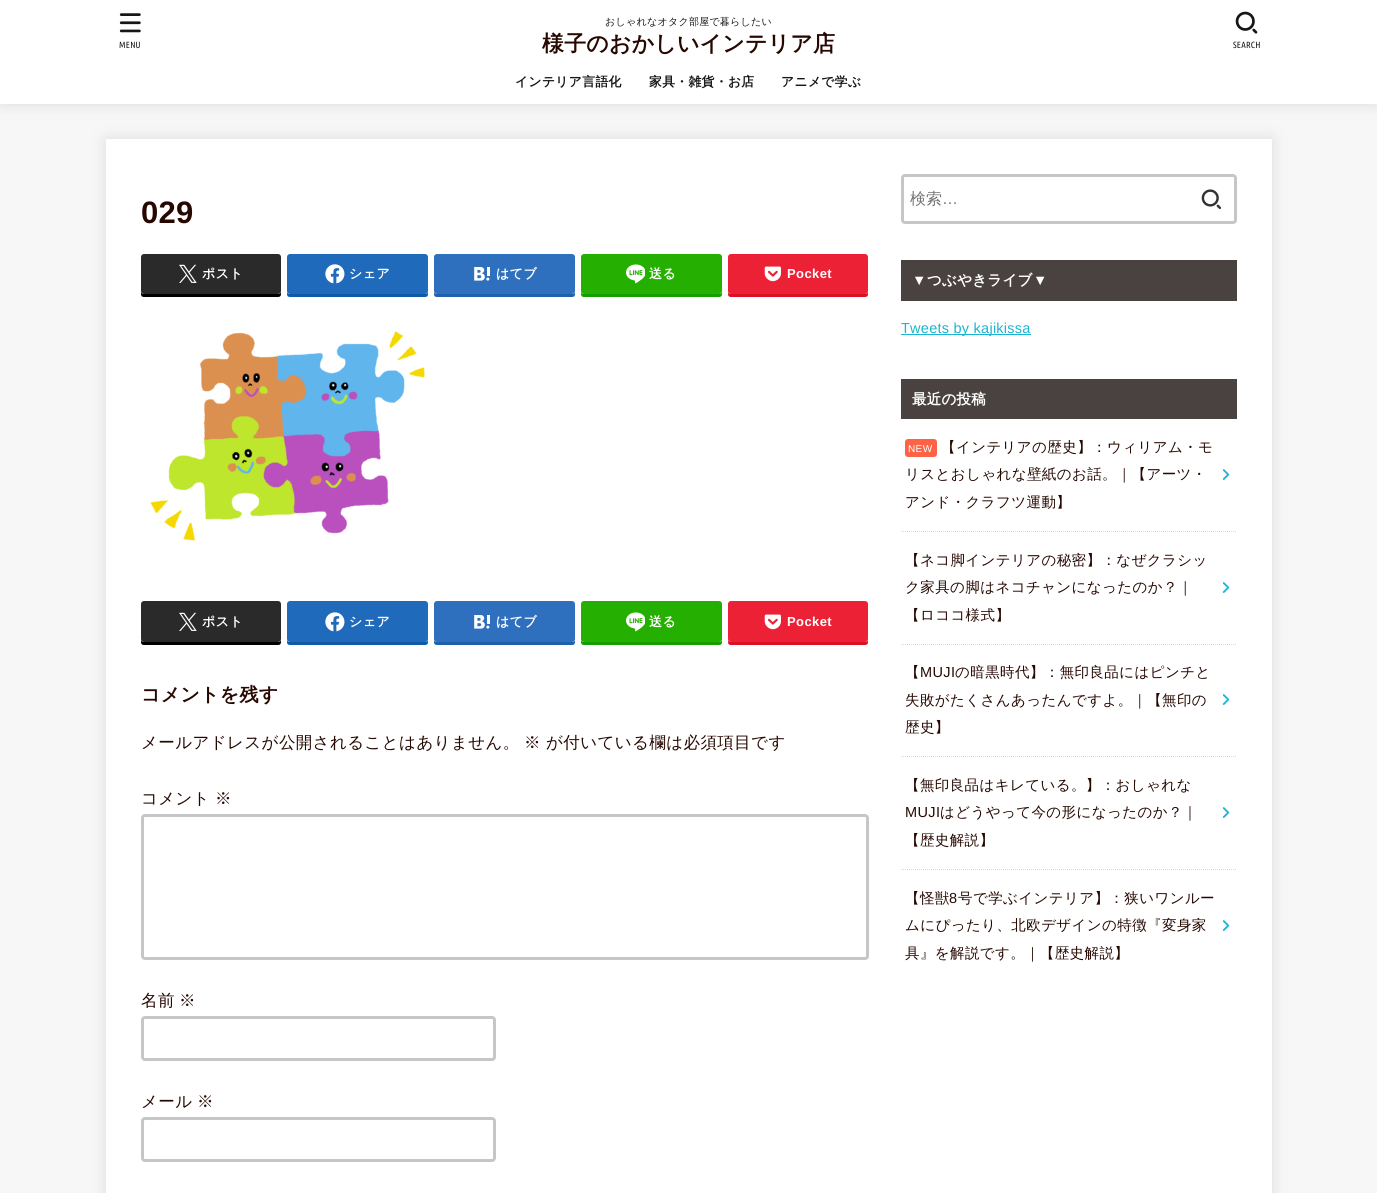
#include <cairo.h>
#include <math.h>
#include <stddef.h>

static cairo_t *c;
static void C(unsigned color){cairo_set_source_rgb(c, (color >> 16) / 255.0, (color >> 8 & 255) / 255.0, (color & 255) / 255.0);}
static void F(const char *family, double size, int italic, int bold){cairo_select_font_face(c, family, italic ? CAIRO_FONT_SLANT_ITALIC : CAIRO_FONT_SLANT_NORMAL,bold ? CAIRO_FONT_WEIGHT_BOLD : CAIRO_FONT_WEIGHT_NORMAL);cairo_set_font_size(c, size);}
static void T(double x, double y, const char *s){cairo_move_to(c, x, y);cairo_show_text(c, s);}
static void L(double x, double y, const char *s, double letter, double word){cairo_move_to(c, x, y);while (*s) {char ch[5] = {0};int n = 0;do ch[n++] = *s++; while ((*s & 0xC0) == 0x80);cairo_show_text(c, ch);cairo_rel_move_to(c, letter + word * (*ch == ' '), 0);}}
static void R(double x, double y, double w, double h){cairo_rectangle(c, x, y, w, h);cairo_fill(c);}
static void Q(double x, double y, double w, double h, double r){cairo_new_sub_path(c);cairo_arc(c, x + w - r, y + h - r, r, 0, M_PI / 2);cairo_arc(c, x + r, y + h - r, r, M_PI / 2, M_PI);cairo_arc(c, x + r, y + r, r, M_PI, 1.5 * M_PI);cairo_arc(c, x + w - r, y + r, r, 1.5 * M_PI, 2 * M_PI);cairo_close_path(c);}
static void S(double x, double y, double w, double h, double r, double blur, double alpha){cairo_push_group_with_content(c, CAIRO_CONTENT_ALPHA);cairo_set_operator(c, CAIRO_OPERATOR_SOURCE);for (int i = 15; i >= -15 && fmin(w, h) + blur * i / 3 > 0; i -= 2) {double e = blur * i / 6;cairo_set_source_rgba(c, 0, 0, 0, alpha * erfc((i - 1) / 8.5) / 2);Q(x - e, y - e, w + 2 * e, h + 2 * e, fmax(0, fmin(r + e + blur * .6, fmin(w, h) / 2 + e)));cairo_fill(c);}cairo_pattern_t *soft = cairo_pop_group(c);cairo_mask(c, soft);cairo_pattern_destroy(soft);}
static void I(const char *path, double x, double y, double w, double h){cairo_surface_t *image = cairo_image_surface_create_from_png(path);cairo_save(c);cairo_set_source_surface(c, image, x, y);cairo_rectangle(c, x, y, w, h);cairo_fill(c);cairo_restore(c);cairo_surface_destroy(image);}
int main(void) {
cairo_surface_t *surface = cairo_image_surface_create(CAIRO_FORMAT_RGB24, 1377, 1193);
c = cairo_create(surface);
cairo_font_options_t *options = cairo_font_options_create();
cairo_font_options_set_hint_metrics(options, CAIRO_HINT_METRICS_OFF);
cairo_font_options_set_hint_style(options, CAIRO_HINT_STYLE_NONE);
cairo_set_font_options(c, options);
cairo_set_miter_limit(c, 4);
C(0xf7f7f7);
cairo_paint(c);
C(0x666666);
S(0,0,1377,104,0,7.5,.2);
C(0xffffff);
R(0,0,1377,104);
I("1.png",119,13,22,20);
F("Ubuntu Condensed",9,0,0);
C(0x161616);
L(119,48,"MENU",.25,0);
F("WenQuanYi Zen Hei Medium",10,0,0);
L(605,25,"おしゃれなオタク部屋で暮らしたい",.25,0);
F("WenQuanYi Zen Hei",21.9,0,1);
C(0x260801);
L(542,51,"様子のおかしいインテリア店",.25,0);
I("2.png",1235,11,23,23);
F("Ubuntu Condensed",9,0,0);
C(0x161616);
L(1233,48,"SEARCH",.25,0);
F("WenQuanYi Zen Hei",12.75,0,1);
L(515,86,"インテリア言語化",.4,0);
L(649,86,"家具・雑貨・お店",.4,0);
L(781,86,"アニメで学ぶ",.4,0);
C(0x666666);
S(106,139,1166,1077,0,7.5,.2);
C(0xffffff);
R(106,139,1166,1054);
F("Liberation Sans",31,0,1);
C(0x260801);
L(141,223,"029",.25,0);
C(0x000000);
cairo_new_path(c);
cairo_move_to(c,141,291);
cairo_line_to(c,141,294);
cairo_curve_to(c,141,296,142,297,144,297);
cairo_line_to(c,278,297);
cairo_curve_to(c,280,297,281,296,281,294);
cairo_line_to(c,281,291);
cairo_curve_to(c,281,293,280,294,278,294);
cairo_line_to(c,144,294);
cairo_curve_to(c,142,294,141,293,141,291);
cairo_close_path(c);
cairo_fill(c);
C(0x2a2a2a);
Q(141,254,140,40,3);
cairo_fill(c);
I("3.png",179,264,18,19);
F("WenQuanYi Zen Hei",13,0,1);
C(0xffffff);
L(202,278,"ポスト",.4,0);
C(0x0e59a9);
cairo_new_path(c);
cairo_move_to(c,287,291);
cairo_line_to(c,287,294);
cairo_curve_to(c,287,296,288,297,290,297);
cairo_line_to(c,425,297);
cairo_curve_to(c,427,297,428,296,428,294);
cairo_line_to(c,428,291);
cairo_curve_to(c,428,293,427,294,425,294);
cairo_line_to(c,290,294);
cairo_curve_to(c,288,294,287,293,287,291);
cairo_close_path(c);
cairo_fill(c);
C(0x1f6aba);
Q(287,254,141,40,3);
cairo_fill(c);
I("4.png",325,264,20,20);
C(0xffffff);
L(349,278,"シェア",.4,0);
C(0x1e60ad);
cairo_new_path(c);
cairo_move_to(c,434,291);
cairo_line_to(c,434,294);
cairo_curve_to(c,434,296,435,297,437,297);
cairo_line_to(c,572,297);
cairo_curve_to(c,574,297,575,296,575,294);
cairo_line_to(c,575,291);
cairo_curve_to(c,575,293,574,294,572,294);
cairo_line_to(c,437,294);
cairo_curve_to(c,435,294,434,293,434,291);
cairo_close_path(c);
cairo_fill(c);
C(0x2f70be);
Q(434,254,141,40,3);
cairo_fill(c);
I("5.png",474,267,16,14);
C(0xffffff);
L(496,278,"はてブ",.4,0);
C(0x149e00);
cairo_new_path(c);
cairo_move_to(c,581,291);
cairo_line_to(c,581,294);
cairo_curve_to(c,581,296,582,297,584,297);
cairo_line_to(c,719,297);
cairo_curve_to(c,721,297,722,296,722,294);
cairo_line_to(c,722,291);
cairo_curve_to(c,722,293,721,294,719,294);
cairo_line_to(c,584,294);
cairo_curve_to(c,582,294,581,293,581,291);
cairo_close_path(c);
cairo_fill(c);
C(0x25af00);
Q(581,254,141,40,3);
cairo_fill(c);
I("6.png",626,264,19,20);
C(0xffffff);
L(649,278,"送る",.4,0);
C(0xdb1025);
cairo_new_path(c);
cairo_move_to(c,728,291);
cairo_line_to(c,728,294);
cairo_curve_to(c,728,296,729,297,731,297);
cairo_line_to(c,865,297);
cairo_curve_to(c,867,297,868,296,868,294);
cairo_line_to(c,868,291);
cairo_curve_to(c,868,293,867,294,865,294);
cairo_line_to(c,731,294);
cairo_curve_to(c,729,294,728,293,728,291);
cairo_close_path(c);
cairo_fill(c);
C(0xec2136);
Q(728,254,140,40,3);
cairo_fill(c);
I("7.png",764,266,17,16);
F("Liberation Sans",13,0,1);
C(0xffffff);
L(787,278,"Pocket",.4,0);
I("8.png",150,331,275,210);
C(0x000000);
cairo_new_path(c);
cairo_move_to(c,141,639);
cairo_line_to(c,141,642);
cairo_curve_to(c,141,644,142,645,144,645);
cairo_line_to(c,278,645);
cairo_curve_to(c,280,645,281,644,281,642);
cairo_line_to(c,281,639);
cairo_curve_to(c,281,641,280,642,278,642);
cairo_line_to(c,144,642);
cairo_curve_to(c,142,642,141,641,141,639);
cairo_close_path(c);
cairo_fill(c);
C(0x2a2a2a);
Q(141,601,140,41,3);
cairo_fill(c);
I("3.png",179,612,18,19);
F("WenQuanYi Zen Hei",13,0,1);
C(0xffffff);
L(202,626,"ポスト",.4,0);
C(0x0e59a9);
cairo_new_path(c);
cairo_move_to(c,287,639);
cairo_line_to(c,287,642);
cairo_curve_to(c,287,644,288,645,290,645);
cairo_line_to(c,425,645);
cairo_curve_to(c,427,645,428,644,428,642);
cairo_line_to(c,428,639);
cairo_curve_to(c,428,641,427,642,425,642);
cairo_line_to(c,290,642);
cairo_curve_to(c,288,642,287,641,287,639);
cairo_close_path(c);
cairo_fill(c);
C(0x1f6aba);
Q(287,601,141,41,3);
cairo_fill(c);
I("4.png",325,612,20,20);
C(0xffffff);
L(349,626,"シェア",.4,0);
C(0x1e60ad);
cairo_new_path(c);
cairo_move_to(c,434,639);
cairo_line_to(c,434,642);
cairo_curve_to(c,434,644,435,645,437,645);
cairo_line_to(c,572,645);
cairo_curve_to(c,574,645,575,644,575,642);
cairo_line_to(c,575,639);
cairo_curve_to(c,575,641,574,642,572,642);
cairo_line_to(c,437,642);
cairo_curve_to(c,435,642,434,641,434,639);
cairo_close_path(c);
cairo_fill(c);
C(0x2f70be);
Q(434,601,141,41,3);
cairo_fill(c);
I("5.png",474,615,16,14);
C(0xffffff);
L(496,626,"はてブ",.4,0);
C(0x149e00);
cairo_new_path(c);
cairo_move_to(c,581,639);
cairo_line_to(c,581,642);
cairo_curve_to(c,581,644,582,645,584,645);
cairo_line_to(c,719,645);
cairo_curve_to(c,721,645,722,644,722,642);
cairo_line_to(c,722,639);
cairo_curve_to(c,722,641,721,642,719,642);
cairo_line_to(c,584,642);
cairo_curve_to(c,582,642,581,641,581,639);
cairo_close_path(c);
cairo_fill(c);
C(0x25af00);
Q(581,601,141,41,3);
cairo_fill(c);
I("6.png",626,612,19,20);
C(0xffffff);
L(649,626,"送る",.4,0);
C(0xdb1025);
cairo_new_path(c);
cairo_move_to(c,728,639);
cairo_line_to(c,728,642);
cairo_curve_to(c,728,644,729,645,731,645);
cairo_line_to(c,865,645);
cairo_curve_to(c,867,645,868,644,868,642);
cairo_line_to(c,868,639);
cairo_curve_to(c,868,641,867,642,865,642);
cairo_line_to(c,731,642);
cairo_curve_to(c,729,642,728,641,728,639);
cairo_close_path(c);
cairo_fill(c);
C(0xec2136);
Q(728,601,140,41,3);
cairo_fill(c);
I("7.png",764,614,17,16);
F("Liberation Sans",13,0,1);
C(0xffffff);
L(787,626,"Pocket",.4,0);
F("WenQuanYi Zen Hei",19,0,1);
C(0x260801);
L(141,701,"コメントを残す",.25,0);
F("WenQuanYi Zen Hei Medium",16.5,0,0);
L(141,748,"メールアドレスが公開されることはありません。",.4,0);
L(524,748,"※",.4,0);
L(546,748,"が付いている欄は必須項目です",.4,0);
L(141,804,"コメント",.4,0);
L(215,804,"※",.4,0);
Q(142.5,815.5,725,143,2.5);
C(0xc6c6c6);
cairo_set_line_width(c,3);
cairo_stroke(c);
C(0x260801);
L(141,1006,"名前",.4,0);
L(179,1006,"※",.4,0);
Q(142.5,1017.5,352,42,2.5);
C(0xc6c6c6);
cairo_stroke(c);
C(0x260801);
L(141,1107,"メール",.4,0);
L(197,1107,"※",.4,0);
Q(142.5,1118.5,352,42,2.5);
C(0xc6c6c6);
cairo_stroke(c);
Q(902.5,175.5,333,47,2.5);
cairo_stroke(c);
F("WenQuanYi Zen Hei Medium",16,0,0);
C(0x757575);
T(910,204,"検索");
F("Liberation Sans",16,0,0);
T(942,204,"…");
I("9.png",1201,189,20,20);
C(0x494241);
R(901,260,336,41);
F("Liberation Sans",14.5,0,1);
C(0xffffff);
L(912,285,"▼",.25,0);
F("WenQuanYi Zen Hei",14.5,0,1);
L(927,285,"つぶやきライブ",.25,0);
F("Liberation Sans",14.5,0,1);
L(1033,285,"▼",.25,0);
C(0x1bb4d3);
R(901,334,130,1);
F("Liberation Sans",14.5,0,0);
L(901,333,"Tweets by kajikissa",.25,0);
C(0x494241);
R(901,379,336,40);
F("WenQuanYi Zen Hei",14.5,0,1);
C(0xffffff);
L(912,404,"最近の投稿",.25,0);
cairo_new_path(c);
cairo_move_to(c,901,531.5);
cairo_line_to(c,1237,531.5);
C(0xd8d8d8);
cairo_set_line_width(c,1);
cairo_set_dash(c,(double[]){1,1},2,0);
cairo_stroke(c);
C(0xff6347);
Q(905,439,32,18,3);
cairo_fill(c);
F("Liberation Sans",10,0,0);
C(0xffffff);
L(908,452,"NEW",.4,0);
F("WenQuanYi Zen Hei Medium",14.5,0,0);
C(0x260801);
L(941,452,"【インテリアの歴史】：ウィリアム・モ",.4,0);
L(905,479,"リスとおしゃれな壁紙のお話。｜【アーツ・",.4,0);
L(905,507,"アンド・クラフツ運動】",.4,0);
I("10.png",1222,469,8,11);
cairo_new_path(c);
cairo_move_to(c,901,644.5);
cairo_line_to(c,1237,644.5);
C(0xd8d8d8);
cairo_stroke(c);
C(0x260801);
L(905,565,"【ネコ脚インテリアの秘密】：なぜクラシッ",.4,0);
L(905,592,"ク家具の脚はネコチャンになったのか？｜",.4,0);
L(905,620,"【ロココ様式】",.4,0);
I("10.png",1222,582,8,11);
cairo_new_path(c);
cairo_move_to(c,901,756.5);
cairo_line_to(c,1237,756.5);
C(0xd8d8d8);
cairo_stroke(c);
C(0x260801);
L(905,677,"【",.4,0);
F("Liberation Sans",14.5,0,0);
L(920,677,"MUJI",.4,0);
F("WenQuanYi Zen Hei Medium",14.5,0,0);
L(955,677,"の暗黒時代】：無印良品にはピンチと",.4,0);
L(905,705,"失敗がたくさんあったんですよ。｜【無印の",.4,0);
L(905,732,"歴史】",.4,0);
I("10.png",1222,694,8,11);
cairo_new_path(c);
cairo_move_to(c,901,869.5);
cairo_line_to(c,1237,869.5);
C(0xd8d8d8);
cairo_stroke(c);
C(0x260801);
L(905,790,"【無印良品はキレている。】：おしゃれな",.4,0);
F("Liberation Sans",14.5,0,0);
L(905,817,"MUJI",.4,0);
F("WenQuanYi Zen Hei Medium",14.5,0,0);
L(940,817,"はどうやって今の形になったのか？｜",.4,0);
L(905,845,"【歴史解説】",.4,0);
I("10.png",1222,807,8,11);
L(905,903,"【怪獣",.4,0);
F("Liberation Sans",14.5,0,0);
L(949,903,"8",.4,0);
F("WenQuanYi Zen Hei Medium",14.5,0,0);
L(958,903,"号で学ぶインテリア】：狭いワンルー",.4,0);
L(905,930,"ムにぴったり、北欧デザインの特徴『変身家",.4,0);
L(905,958,"具』を解説です。｜【歴史解説】",.4,0);
I("10.png",1222,920,8,11);
cairo_surface_write_to_png(surface, "o.png");
cairo_font_options_destroy(options);
cairo_destroy(c);
cairo_surface_destroy(surface);
return 0;
}
